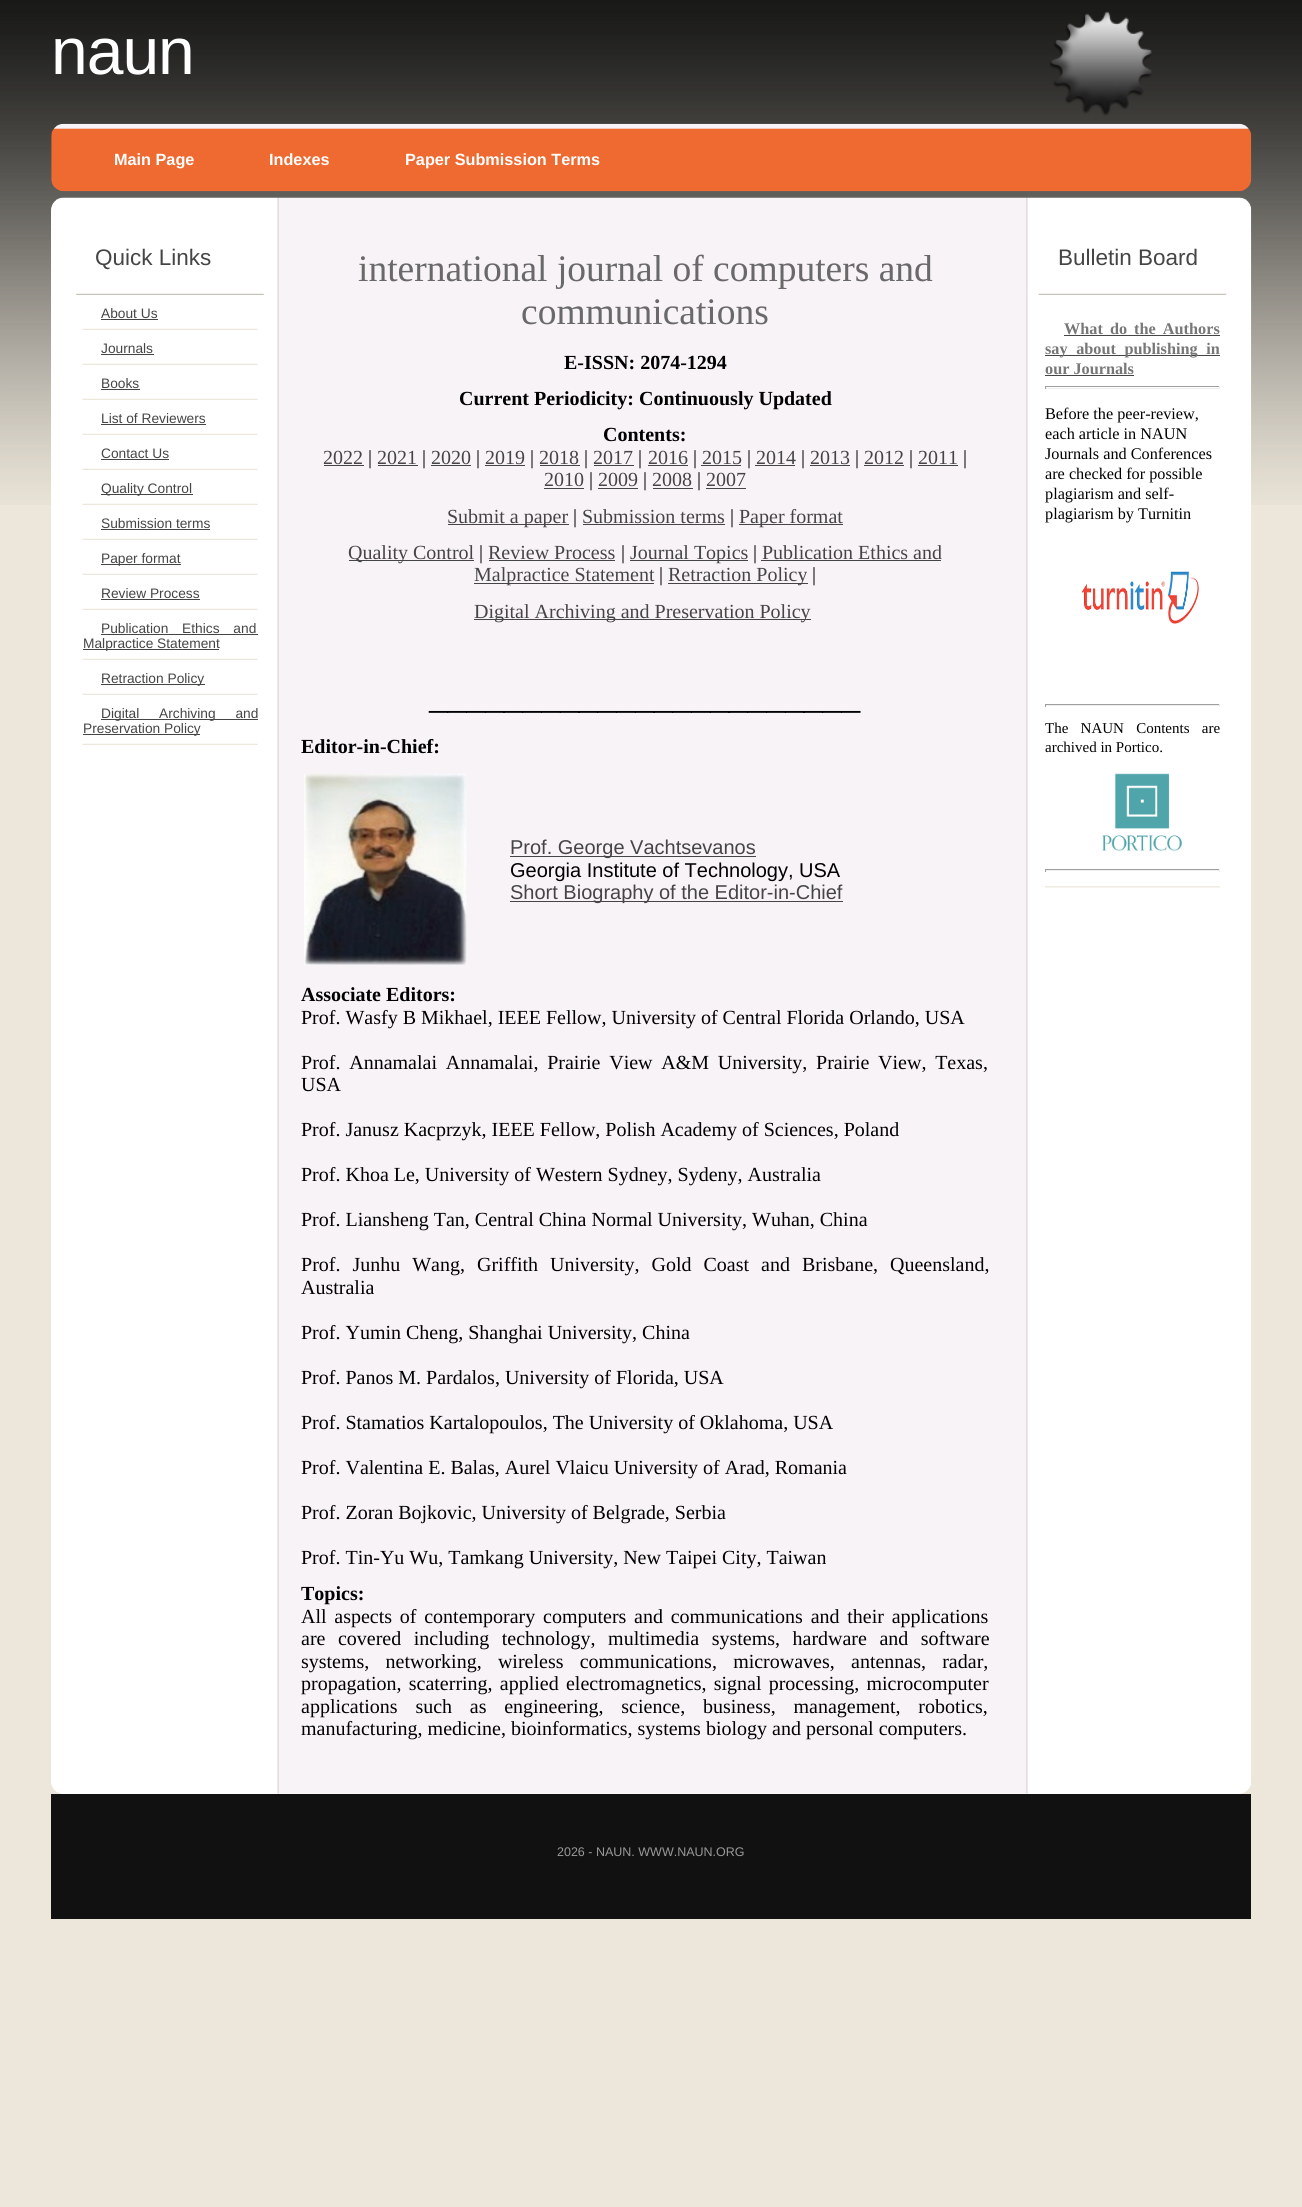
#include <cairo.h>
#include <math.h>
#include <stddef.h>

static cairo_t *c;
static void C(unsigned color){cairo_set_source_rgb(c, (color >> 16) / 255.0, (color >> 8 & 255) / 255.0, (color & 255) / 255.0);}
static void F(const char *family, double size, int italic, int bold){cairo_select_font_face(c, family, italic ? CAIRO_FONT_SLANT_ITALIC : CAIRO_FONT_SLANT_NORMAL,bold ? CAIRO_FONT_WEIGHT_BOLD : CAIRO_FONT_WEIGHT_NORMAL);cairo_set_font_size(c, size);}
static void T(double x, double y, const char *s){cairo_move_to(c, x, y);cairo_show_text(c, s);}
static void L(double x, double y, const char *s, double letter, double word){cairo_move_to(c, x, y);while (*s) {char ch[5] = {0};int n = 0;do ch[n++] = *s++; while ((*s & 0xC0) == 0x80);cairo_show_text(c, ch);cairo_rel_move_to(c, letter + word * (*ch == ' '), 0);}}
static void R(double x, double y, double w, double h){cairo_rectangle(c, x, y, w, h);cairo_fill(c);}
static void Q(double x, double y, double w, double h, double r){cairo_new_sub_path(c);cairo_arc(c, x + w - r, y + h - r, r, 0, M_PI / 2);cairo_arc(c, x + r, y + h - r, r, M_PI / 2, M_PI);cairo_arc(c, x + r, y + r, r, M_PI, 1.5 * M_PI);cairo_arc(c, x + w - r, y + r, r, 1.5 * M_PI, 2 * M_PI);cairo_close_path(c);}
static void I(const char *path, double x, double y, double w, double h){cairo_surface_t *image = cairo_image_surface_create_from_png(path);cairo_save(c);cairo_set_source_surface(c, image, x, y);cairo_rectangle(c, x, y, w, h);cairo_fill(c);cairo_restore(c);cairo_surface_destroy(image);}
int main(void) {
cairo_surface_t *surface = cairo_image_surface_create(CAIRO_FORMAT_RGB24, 1302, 2207);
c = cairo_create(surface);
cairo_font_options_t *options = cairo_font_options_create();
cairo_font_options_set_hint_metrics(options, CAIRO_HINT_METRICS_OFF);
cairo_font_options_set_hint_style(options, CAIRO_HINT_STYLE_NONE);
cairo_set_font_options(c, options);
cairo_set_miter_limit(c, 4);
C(0xede7db);
cairo_paint(c);
I("1.png",0,0,1302,505);
F("Liberation Sans",66,0,0);
C(0xffffff);
L(51,74,"naun",-1,0);
I("2.png",1049,11,103,105);
I("3.png",51,123,1201,69);
F("Liberation Sans",16.25,0,1);
T(114,165,"Main Page");
T(269,165,"Indexes");
T(405,165,"Paper Submission Terms");
Q(51,198,1200,1596,13);
cairo_fill(c);
I("4.png",51,197,1201,1597);
I("5.png",76,293,188,2);
F("Liberation Sans",22.5,0,0);
C(0x454545);
T(95,265,"Quick Links");
I("6.png",82,328,176,2);
F("Liberation Sans",13.75,0,0);
T(101,318,"About Us");
R(101,319,57,1);
I("6.png",82,363,176,2);
T(101,353,"Journals");
R(101,354,53,1);
I("6.png",82,398,176,2);
T(101,388,"Books");
R(101,389,39,1);
I("6.png",82,433,176,2);
T(101,423,"List of Reviewers");
R(101,424,105,1);
I("6.png",82,468,176,2);
T(101,458,"Contact Us");
R(101,459,68,1);
I("6.png",82,503,176,2);
R(101,494,92,1);
T(101,493,"Quality Control");
I("6.png",82,538,176,2);
T(101,528,"Submission terms");
R(101,529,109,1);
I("6.png",82,573,176,2);
R(101,564,80,1);
T(101,563,"Paper format");
I("6.png",82,608,176,2);
T(101,598,"Review Process");
R(101,599,99,1);
I("6.png",82,658,176,2);
L(101,633,"Publication Ethics and",0,10);
R(101,634,157,1);
R(83,649,136,1);
T(83,648,"Malpractice Statement");
I("6.png",82,693,176,2);
R(101,684,104,1);
T(101,683,"Retraction Policy");
I("6.png",82,743,176,2);
R(101,719,157,1);
L(101,718,"Digital Archiving and",0,16);
R(83,734,117,1);
T(83,733,"Preservation Policy");
F("Liberation Serif",37.5,0,0);
C(0x696969);
T(358,281,"international journal of computers and");
T(521,324,"communications");
F("Liberation Serif",20,0,1);
C(0x000000);
T(564,369,"E-ISSN: 2074-1294");
T(459,405,"Current Periodicity: Continuously Updated");
T(603,441,"Contents:");
F("Liberation Serif",20,0,0);
C(0x454545);
T(323,464,"2022");
R(324,465,40,1);
C(0x000000);
T(368,464,"|");
C(0x454545);
T(377,464,"2021");
R(378,465,40,1);
C(0x000000);
T(422,464,"|");
C(0x454545);
T(431,464,"2020");
R(431,465,40,1);
C(0x000000);
T(476,464,"|");
C(0x454545);
T(485,464,"2019");
R(485,465,40,1);
C(0x000000);
T(530,464,"|");
C(0x454545);
T(539,464,"2018");
R(540,465,40,1);
C(0x000000);
T(584,464,"|");
C(0x454545);
T(593,464,"2017");
R(594,465,40,1);
C(0x000000);
T(638,464,"|");
C(0x454545);
T(648,464,"2016");
R(648,465,40,1);
C(0x000000);
T(693,464,"|");
C(0x454545);
T(702,464,"2015");
R(701,465,40,1);
C(0x000000);
T(747,464,"|");
C(0x454545);
T(756,464,"2014");
R(755,465,40,1);
C(0x000000);
T(801,464,"|");
C(0x454545);
T(810,464,"2013");
R(810,465,40,1);
C(0x000000);
T(855,464,"|");
C(0x454545);
T(864,464,"2012");
R(864,465,40,1);
C(0x000000);
T(909,464,"|");
C(0x454545);
T(918,464,"2011");
R(918,465,40,1);
C(0x000000);
T(963,464,"|");
C(0x454545);
T(544,486,"2010");
R(544,488,40,1);
C(0x000000);
T(589,486,"|");
C(0x454545);
T(598,486,"2009");
R(598,488,40,1);
C(0x000000);
T(643,486,"|");
C(0x454545);
T(652,486,"2008");
R(653,488,40,1);
C(0x000000);
T(697,486,"|");
C(0x454545);
T(706,486,"2007");
R(706,488,40,1);
R(448,524,121,1);
T(447,523,"Submit a paper");
C(0x000000);
T(573,523,"|");
C(0x454545);
T(582,523,"Submission terms");
R(583,524,142,1);
C(0x000000);
T(730,523,"|");
C(0x454545);
R(739,524,104,1);
T(739,523,"Paper format");
R(349,560,125,1);
T(348,559,"Quality Control");
C(0x000000);
T(479,559,"|");
C(0x454545);
T(488,559,"Review Process");
R(489,560,126,1);
C(0x000000);
T(621,559,"|");
C(0x454545);
R(630,560,118,1);
T(630,559,"Journal Topics");
C(0x000000);
T(753,559,"|");
C(0x454545);
T(762,559,"Publication Ethics and");
R(761,560,180,1);
R(474,583,180,1);
T(474,581,"Malpractice Statement");
C(0x000000);
T(659,581,"|");
C(0x454545);
R(668,583,140,1);
T(668,581,"Retraction Policy");
C(0x000000);
T(812,581,"|");
C(0x454545);
R(474,619,337,1);
T(474,618,"Digital Archiving and Preservation Policy");
F("Liberation Serif",37.5,0,0);
C(0x000000);
T(429,708,"_______________________");
F("Liberation Serif",20,0,1);
T(301,753,"Editor-in-Chief:");
I("7.png",304,773,163,192);
C(0x454545);
R(510,856,246,1);
F("Liberation Sans",20,0,0);
T(510,854,"Prof. George Vachtsevanos");
C(0x000000);
T(510,877,"Georgia Institute of Technology, USA");
C(0x454545);
R(510,901,333,1);
T(510,899,"Short Biography of the Editor-in-Chief");
F("Liberation Serif",20,0,1);
C(0x000000);
T(301,1001,"Associate Editors:");
F("Liberation Serif",20,0,0);
T(301,1024,"Prof. Wasfy B Mikhael, IEEE Fellow, University of Central Florida Orlando, USA");
L(301,1069,"Prof. Annamalai Annamalai, Prairie View A&M University, Prairie View, Texas,",0,3.75);
T(301,1091,"USA");
T(301,1136,"Prof. Janusz Kacprzyk, IEEE Fellow, Polish Academy of Sciences, Poland");
T(301,1181,"Prof. Khoa Le, University of Western Sydney, Sydeny, Australia");
T(301,1226,"Prof. Liansheng Tan, Central China Normal University, Wuhan, China");
L(301,1271,"Prof. Junhu Wang, Griffith University, Gold Coast and Brisbane, Queensland,",0,7);
T(301,1294,"Australia");
T(301,1339,"Prof. Yumin Cheng, Shanghai University, China");
T(301,1384,"Prof. Panos M. Pardalos, University of Florida, USA");
T(301,1429,"Prof. Stamatios Kartalopoulos, The University of Oklahoma, USA");
T(301,1474,"Prof. Valentina E. Balas, Aurel Vlaicu University of Arad, Romania");
T(301,1519,"Prof. Zoran Bojkovic, University of Belgrade, Serbia");
T(301,1564,"Prof. Tin-Yu Wu, Tamkang University, New Taipei City, Taiwan");
F("Liberation Serif",20,0,1);
T(301,1600,"Topics:");
F("Liberation Serif",20,0,0);
L(301,1623,"All aspects of contemporary computers and communications and their applications",0,2.75);
L(301,1645,"are covered including technology, multimedia systems, hardware and software",0,7.5);
L(301,1668,"systems, networking, wireless communications, microwaves, antennas, radar,",0,11.25);
L(301,1690,"propagation, scaterring, applied electromagnetics, signal processing, microcomputer",0,2.25);
L(301,1713,"applications such as engineering, science, business, management, robotics,",0,12.75);
T(301,1735,"manufacturing, medicine, bioinformatics, systems biology and personal computers.");
I("8.png",1038,293,189,2);
F("Liberation Sans",22.5,0,0);
C(0x454545);
T(1058,265,"Bulletin Board");
I("9.png",1045,886,175,2);
F("Liberation Serif",16.25,0,1);
C(0x777777);
L(1064,334,"What do the Authors",0,3);
C(0x454545);
R(1064,335,156,1);
R(1045,355,175,1);
C(0x777777);
L(1045,354,"say about publishing in",0,4.5);
T(1045,374,"our Journals");
C(0x454545);
R(1045,375,89,1);
C(0x9f9f9f);
R(1045,386,175,1);
C(0xeeeeee);
R(1219,386,1,3);
R(1045,388,175,1);
C(0x9f9f9f);
R(1045,386,1,3);
F("Liberation Serif",16.25,0,0);
C(0x000000);
T(1045,419,"Before the peer-review,");
T(1045,439,"each article in NAUN");
T(1045,459,"Journals and Conferences");
T(1045,479,"are checked for possible");
T(1045,499,"plagiarism and self-");
T(1045,519,"plagiarism by Turnitin");
I("10.png",1081,571,118,53);
C(0x9f9f9f);
R(1045,704,175,1);
C(0xeeeeee);
R(1219,704,1,3);
R(1045,705,175,1);
C(0x9f9f9f);
R(1045,704,1,3);
F("Liberation Serif",15,0,0);
C(0x000000);
L(1045,733,"The NAUN Contents are",0,8.5);
T(1045,752,"archived in Portico.");
I("11.png",1102,773,80,78);
C(0x9f9f9f);
R(1045,869,175,1);
C(0xeeeeee);
R(1219,869,1,3);
R(1045,870,175,1);
C(0x9f9f9f);
R(1045,869,1,3);
C(0x111111);
R(51,1794,1200,125);
F("Liberation Sans",12.5,0,0);
C(0x999999);
T(557,1856,"2026 - NAUN. WWW.NAUN.ORG");
cairo_surface_write_to_png(surface, "o.png");
cairo_font_options_destroy(options);
cairo_destroy(c);
cairo_surface_destroy(surface);
return 0;
}
